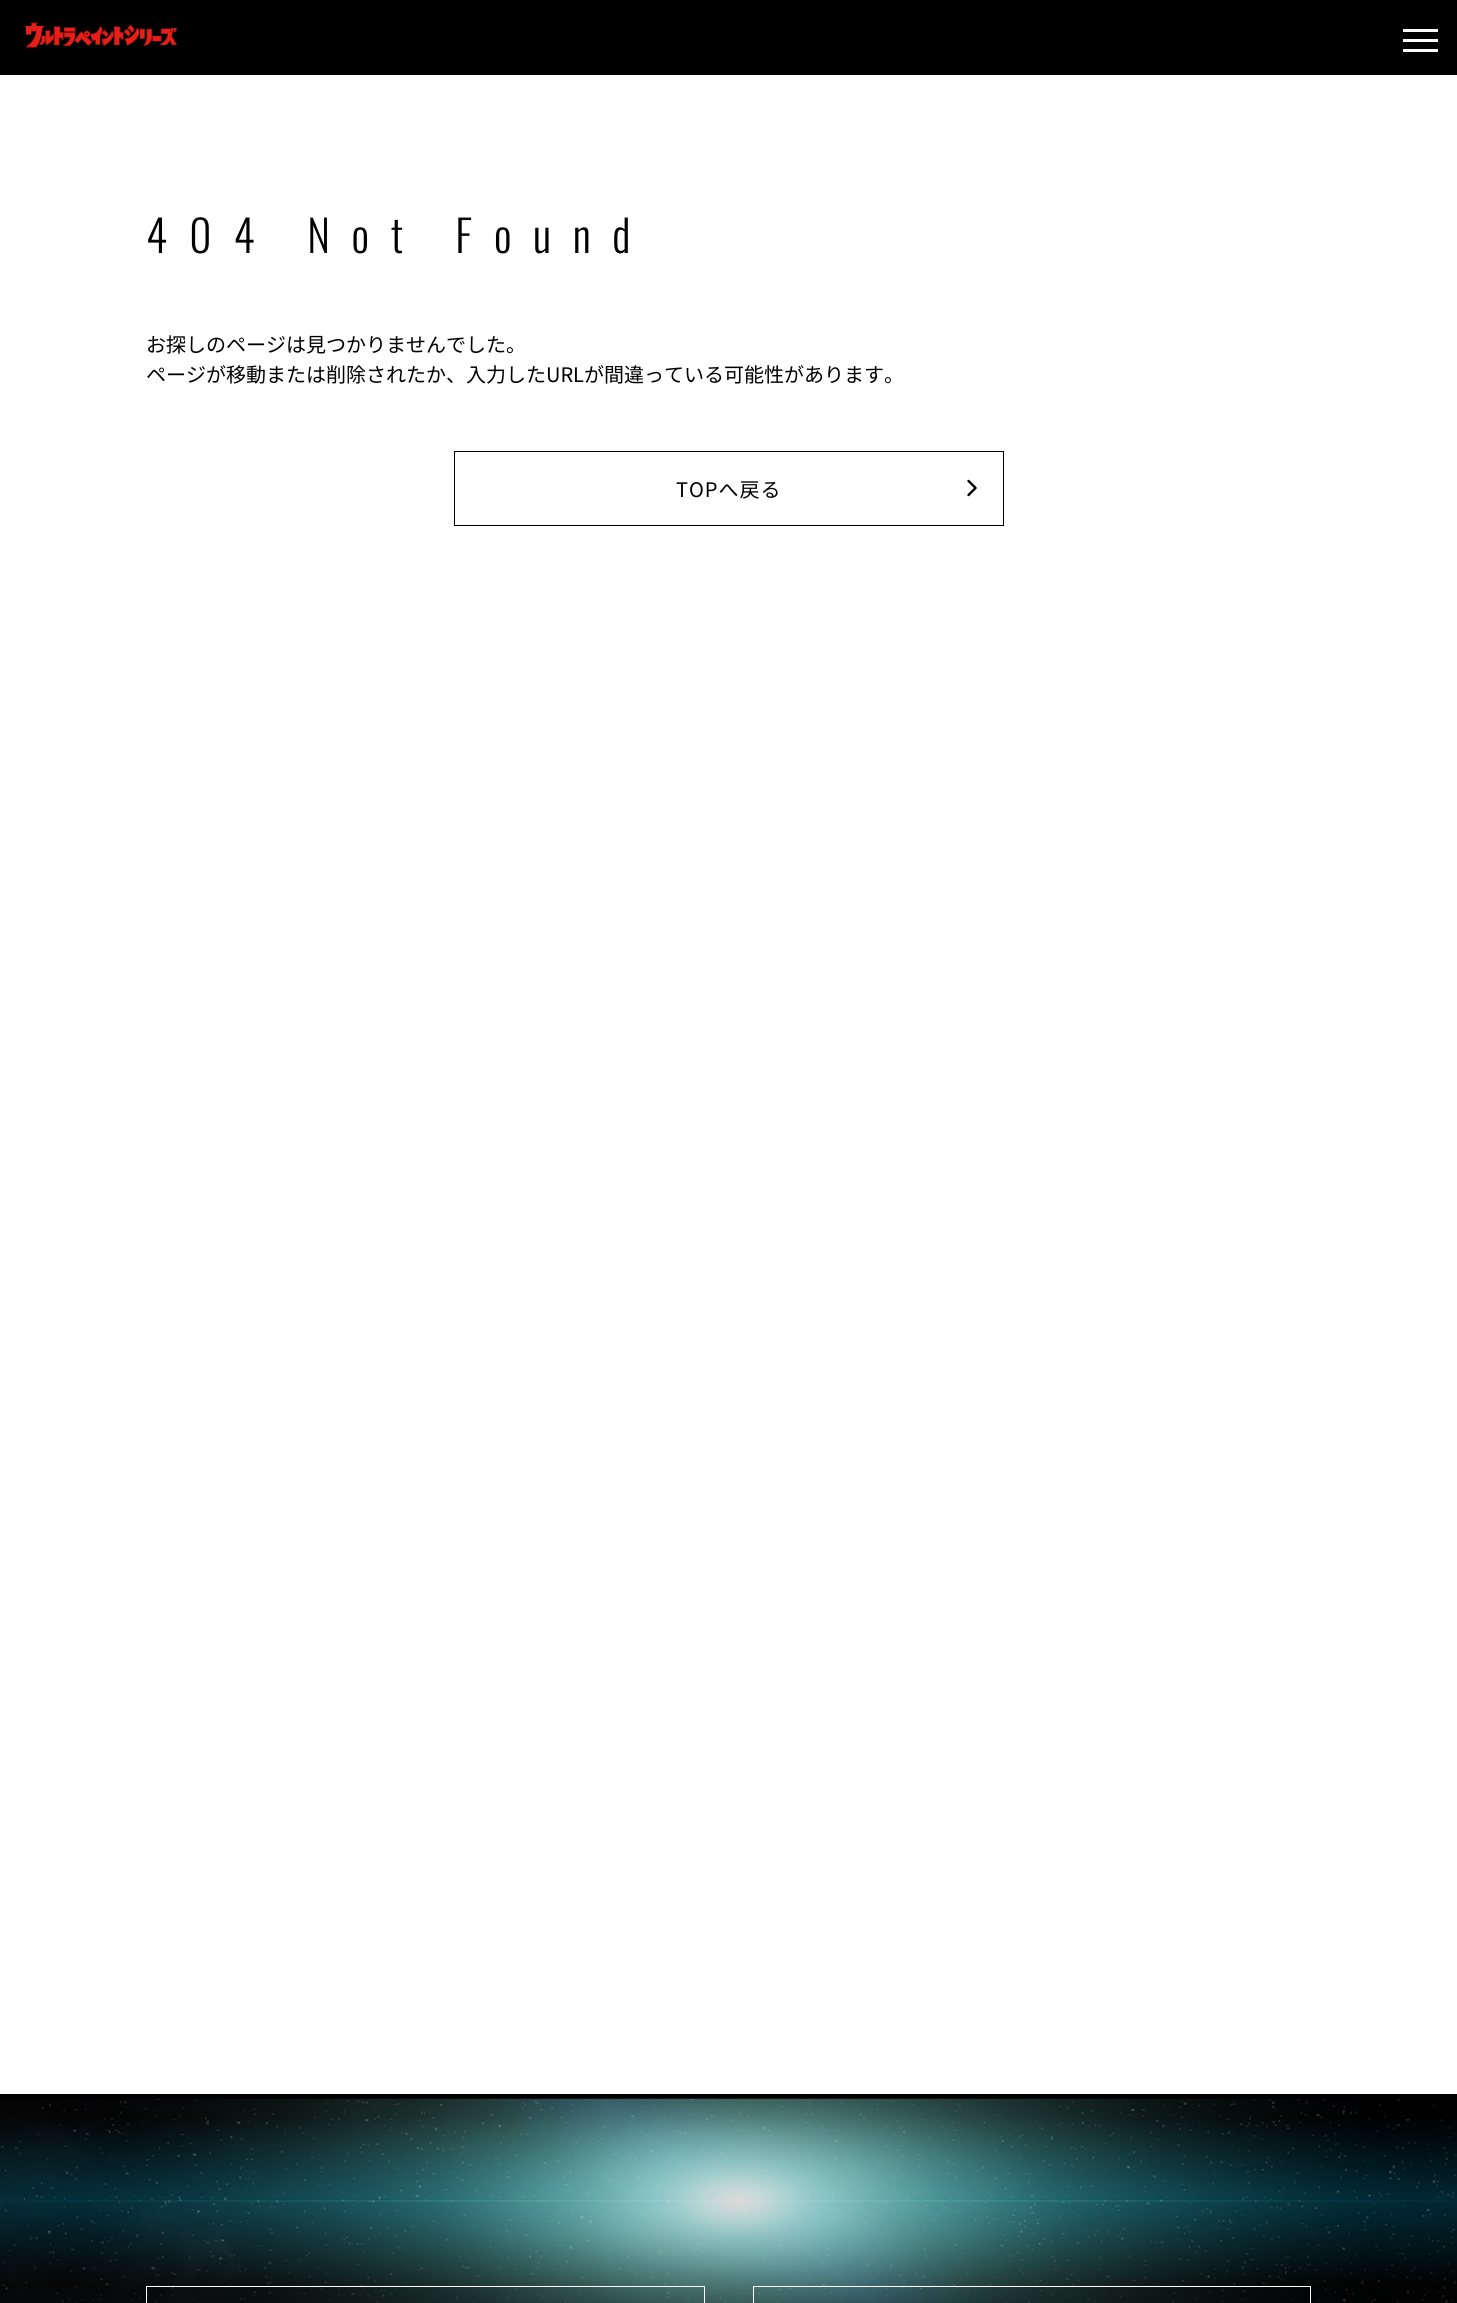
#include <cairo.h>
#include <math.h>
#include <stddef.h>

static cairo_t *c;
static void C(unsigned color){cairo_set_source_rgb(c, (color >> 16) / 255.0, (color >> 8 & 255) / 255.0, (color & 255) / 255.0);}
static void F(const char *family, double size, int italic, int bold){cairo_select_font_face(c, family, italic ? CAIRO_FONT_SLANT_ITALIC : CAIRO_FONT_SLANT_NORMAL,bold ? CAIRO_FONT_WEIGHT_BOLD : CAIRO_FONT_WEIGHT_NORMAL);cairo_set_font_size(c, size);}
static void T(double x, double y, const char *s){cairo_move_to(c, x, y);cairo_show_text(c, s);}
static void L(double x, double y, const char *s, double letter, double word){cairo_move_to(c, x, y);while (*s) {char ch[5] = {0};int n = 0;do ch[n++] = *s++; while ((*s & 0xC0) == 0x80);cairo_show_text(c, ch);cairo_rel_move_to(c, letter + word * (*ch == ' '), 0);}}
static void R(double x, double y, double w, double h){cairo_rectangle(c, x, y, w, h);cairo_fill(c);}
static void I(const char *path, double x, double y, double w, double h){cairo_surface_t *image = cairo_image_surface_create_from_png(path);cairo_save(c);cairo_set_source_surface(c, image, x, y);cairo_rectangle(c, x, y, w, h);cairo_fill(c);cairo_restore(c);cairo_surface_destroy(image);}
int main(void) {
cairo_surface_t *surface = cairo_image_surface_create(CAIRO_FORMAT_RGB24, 1457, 2303);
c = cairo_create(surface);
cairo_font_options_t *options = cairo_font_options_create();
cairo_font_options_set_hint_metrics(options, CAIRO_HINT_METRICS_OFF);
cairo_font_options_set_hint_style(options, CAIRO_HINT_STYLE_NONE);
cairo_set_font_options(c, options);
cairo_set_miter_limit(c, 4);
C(0xffffff);
cairo_paint(c);
C(0x000000);
R(0,0,1457,75);
I("1.png",25,22,153,26);
C(0xffffff);
R(1403,29,35,3);
R(1403,39,35,3);
R(1403,49,35,3);
F("Oswald Light",43.75,0,0);
C(0x000000);
L(146,253,"404 Not Found",21.7,0);
F("Noto Sans JP",20,0,0);
T(146,352,"お探しのページは見つかりませんでした。");
T(146,382,"ページが移動または削除されたか、入力したURLが間違っている可能性があります。");
cairo_rectangle(c,454.5,451.5,549,74);
cairo_set_line_width(c,1);
cairo_stroke(c);
L(676,497,"TOPへ戻る",1,0);
I("2.png",967,479,10,18);
R(0,2094,1457,5);
I("3.png",0,2098,1457,205);
cairo_rectangle(c,146.5,2286.5,558,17);
C(0xffffff);
cairo_stroke(c);
cairo_rectangle(c,753.5,2286.5,557,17);
cairo_stroke(c);
cairo_surface_write_to_png(surface, "o.png");
cairo_font_options_destroy(options);
cairo_destroy(c);
cairo_surface_destroy(surface);
return 0;
}
